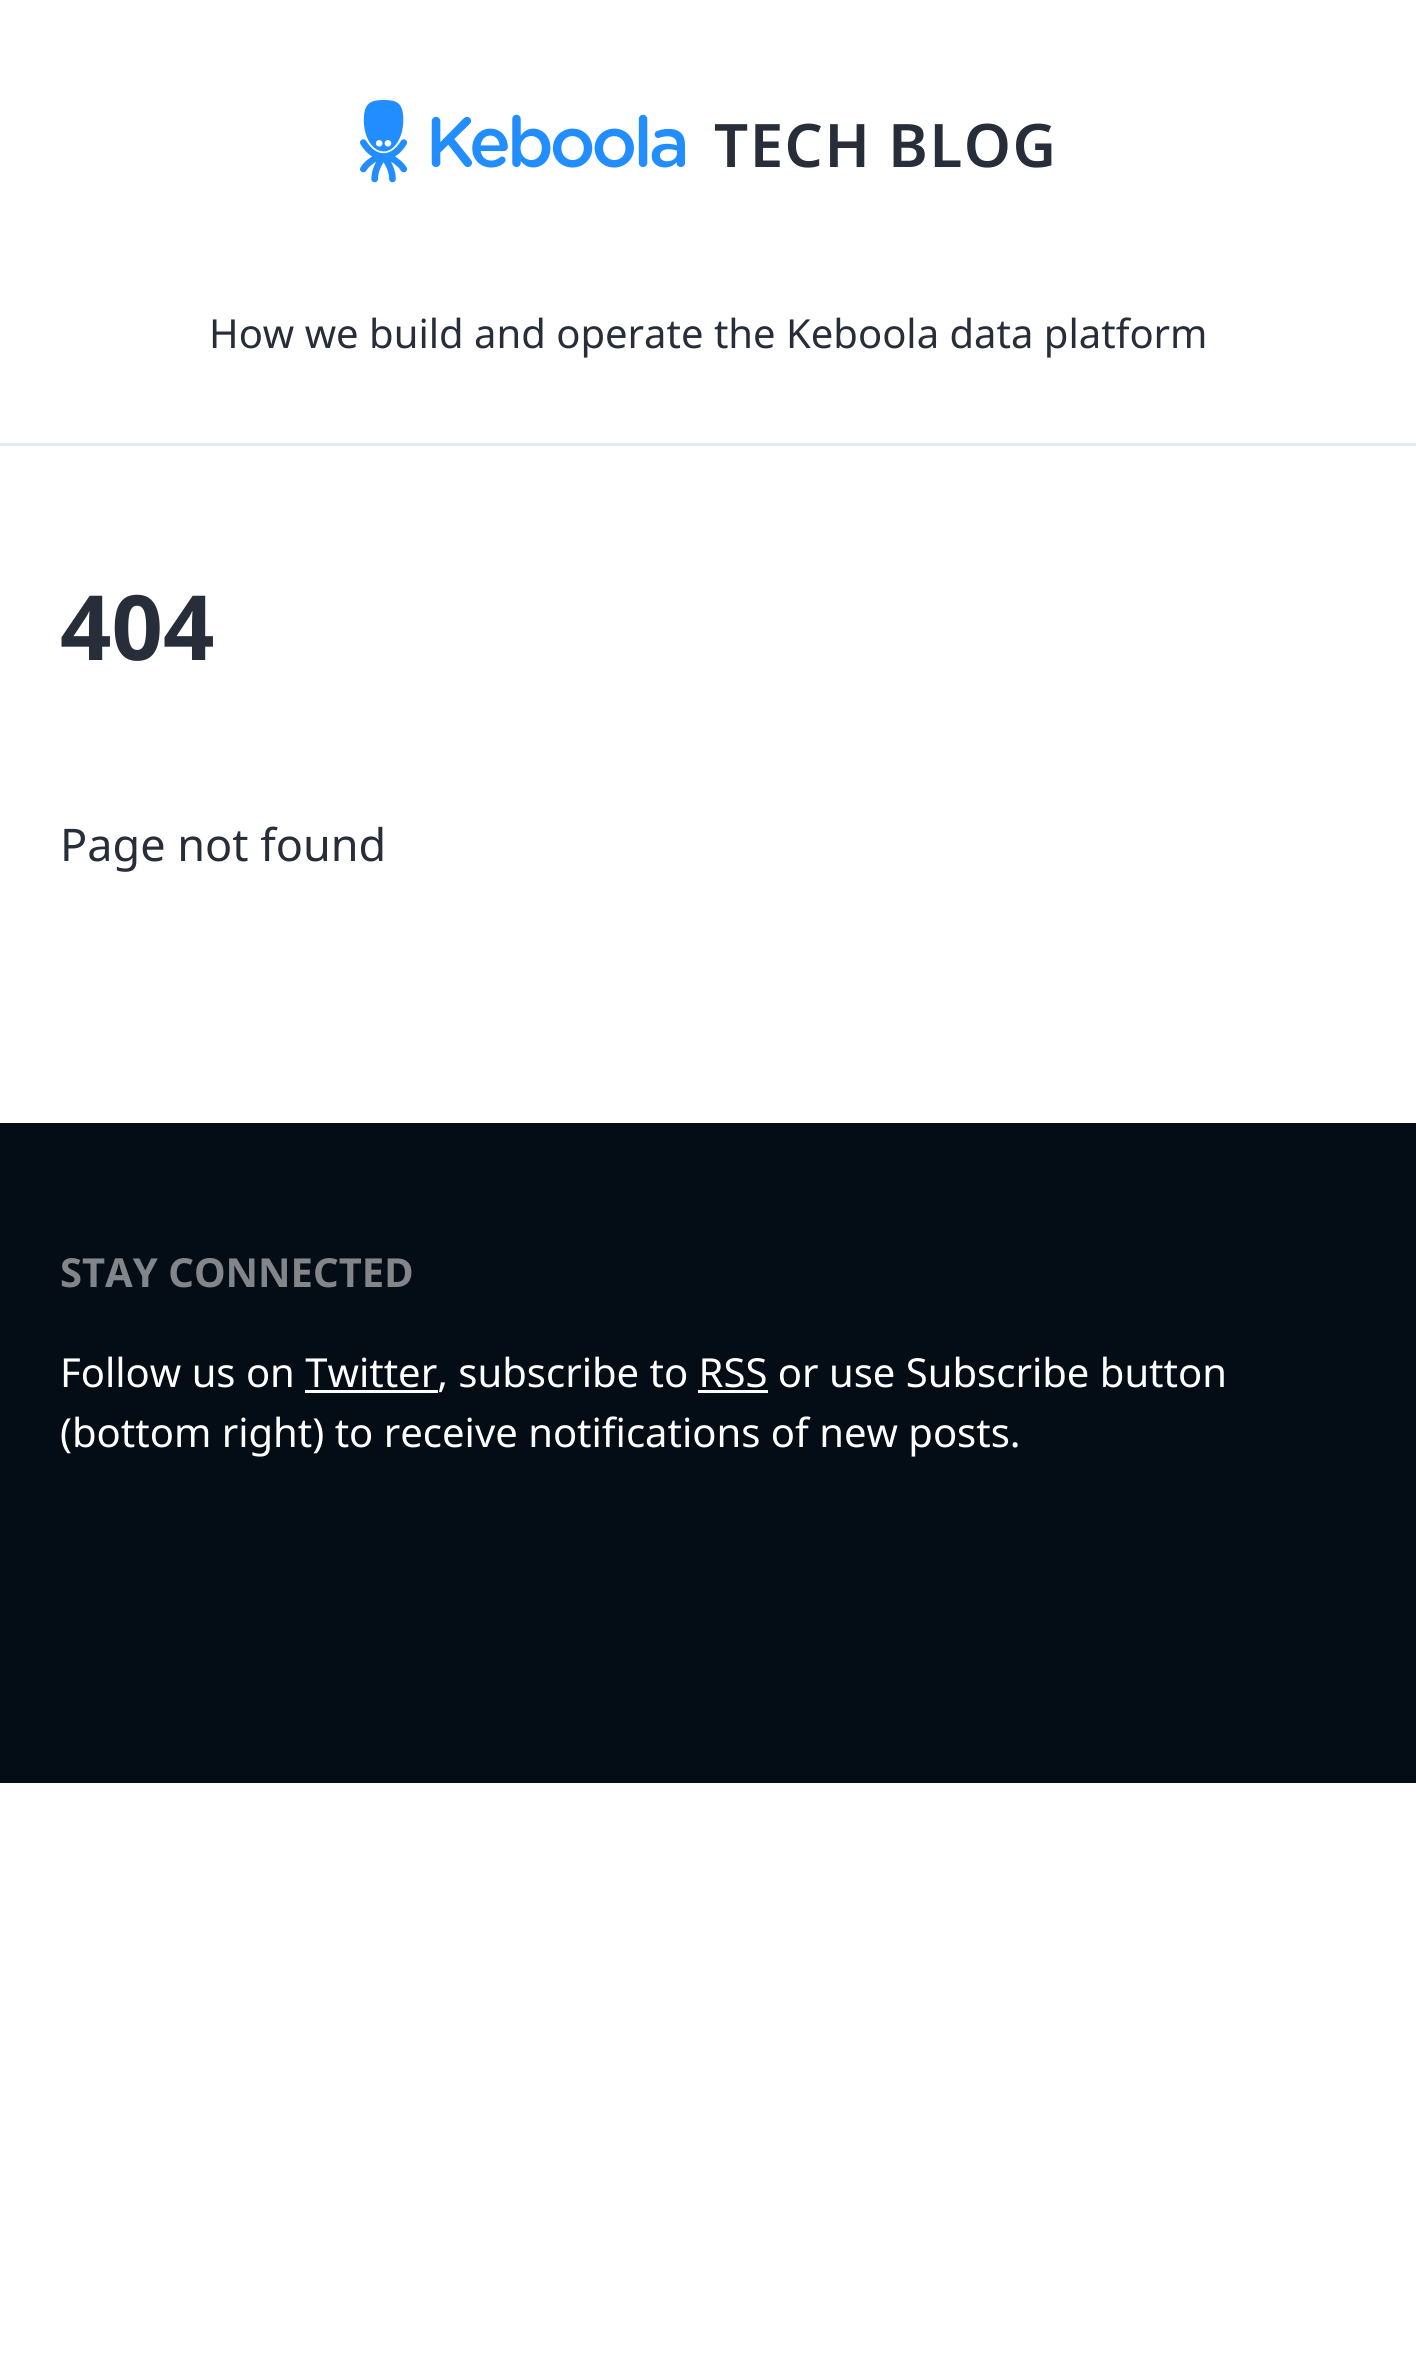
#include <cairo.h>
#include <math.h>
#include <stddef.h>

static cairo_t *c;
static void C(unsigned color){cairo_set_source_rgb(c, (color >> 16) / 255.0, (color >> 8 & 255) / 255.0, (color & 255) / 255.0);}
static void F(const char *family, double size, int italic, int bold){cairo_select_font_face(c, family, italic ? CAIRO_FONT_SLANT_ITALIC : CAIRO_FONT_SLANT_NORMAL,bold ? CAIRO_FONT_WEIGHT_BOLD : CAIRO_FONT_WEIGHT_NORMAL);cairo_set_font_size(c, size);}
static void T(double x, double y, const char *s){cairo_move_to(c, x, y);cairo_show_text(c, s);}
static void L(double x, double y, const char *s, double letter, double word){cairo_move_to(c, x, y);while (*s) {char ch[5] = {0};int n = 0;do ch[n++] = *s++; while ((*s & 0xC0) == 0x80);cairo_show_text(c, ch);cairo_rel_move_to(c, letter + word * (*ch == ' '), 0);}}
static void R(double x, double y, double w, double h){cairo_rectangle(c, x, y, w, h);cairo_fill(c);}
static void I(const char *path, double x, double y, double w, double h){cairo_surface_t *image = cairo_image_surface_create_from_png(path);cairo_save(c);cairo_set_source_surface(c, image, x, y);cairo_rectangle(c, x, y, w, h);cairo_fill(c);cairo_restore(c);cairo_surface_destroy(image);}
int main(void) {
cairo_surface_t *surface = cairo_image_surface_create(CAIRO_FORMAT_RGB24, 1416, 2377);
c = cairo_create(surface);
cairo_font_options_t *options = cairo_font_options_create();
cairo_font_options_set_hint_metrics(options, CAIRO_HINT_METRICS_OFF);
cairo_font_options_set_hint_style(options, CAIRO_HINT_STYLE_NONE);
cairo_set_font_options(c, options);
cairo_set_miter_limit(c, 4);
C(0xffffff);
cairo_paint(c);
C(0xe3e9f3);
R(0,443,1416,3);
I("1.png",360,100,325,83);
F("Noto Sans SemiBold",60,0,0);
C(0x272e39);
L(714,167,"TECH BLOG",1.5,0);
F("Noto Sans",40,0,0);
T(209,348,"How we build and operate the Keboola data platform");
F("Noto Sans",90,0,1);
T(60,660,"404");
F("Noto Sans",45,0,0);
T(60,861,"Page not found");
C(0x040c15);
R(0,1123,1416,660);
F("Noto Sans",40,0,1);
C(0x82868a);
T(60,1287,"STAY CONNECTED");
F("Noto Sans",40,0,0);
C(0xffffff);
T(60,1387,"Follow us on Twitter, subscribe to RSS or use Subscribe button");
R(305,1390,133,3);
R(698,1390,70,3);
T(60,1447,"(bottom right) to receive notifications of new posts.");
cairo_surface_write_to_png(surface, "o.png");
cairo_font_options_destroy(options);
cairo_destroy(c);
cairo_surface_destroy(surface);
return 0;
}
